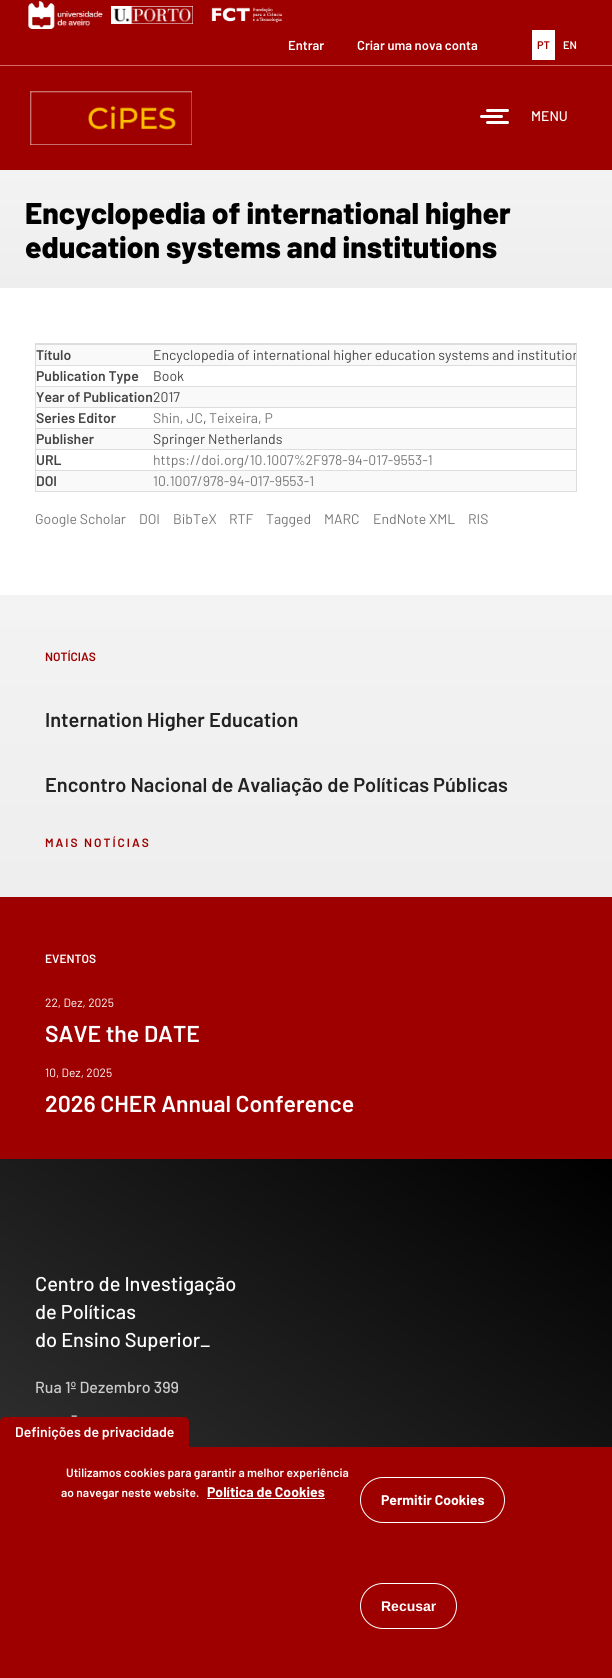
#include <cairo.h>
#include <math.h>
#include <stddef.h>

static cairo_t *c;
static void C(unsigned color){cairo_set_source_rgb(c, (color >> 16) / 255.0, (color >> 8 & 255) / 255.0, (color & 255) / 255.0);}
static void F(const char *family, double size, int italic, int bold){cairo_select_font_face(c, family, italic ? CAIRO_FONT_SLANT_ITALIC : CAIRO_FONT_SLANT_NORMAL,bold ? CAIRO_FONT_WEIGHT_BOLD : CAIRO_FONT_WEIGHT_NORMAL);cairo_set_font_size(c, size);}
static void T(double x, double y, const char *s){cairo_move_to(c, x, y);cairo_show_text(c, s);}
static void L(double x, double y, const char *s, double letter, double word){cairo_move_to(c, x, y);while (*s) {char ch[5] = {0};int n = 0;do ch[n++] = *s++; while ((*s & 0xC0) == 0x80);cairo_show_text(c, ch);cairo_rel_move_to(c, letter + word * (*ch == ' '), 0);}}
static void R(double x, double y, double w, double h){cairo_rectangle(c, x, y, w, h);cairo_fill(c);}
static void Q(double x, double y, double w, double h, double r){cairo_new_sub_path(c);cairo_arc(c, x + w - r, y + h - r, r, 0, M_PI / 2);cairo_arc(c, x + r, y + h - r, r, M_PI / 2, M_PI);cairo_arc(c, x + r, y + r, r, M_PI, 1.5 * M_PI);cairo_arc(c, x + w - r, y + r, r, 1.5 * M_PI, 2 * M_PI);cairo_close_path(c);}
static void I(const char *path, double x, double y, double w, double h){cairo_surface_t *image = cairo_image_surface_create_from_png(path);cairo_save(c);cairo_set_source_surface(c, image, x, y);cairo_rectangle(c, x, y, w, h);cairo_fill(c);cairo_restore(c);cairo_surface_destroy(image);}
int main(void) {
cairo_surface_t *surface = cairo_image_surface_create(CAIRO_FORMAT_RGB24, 612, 1678);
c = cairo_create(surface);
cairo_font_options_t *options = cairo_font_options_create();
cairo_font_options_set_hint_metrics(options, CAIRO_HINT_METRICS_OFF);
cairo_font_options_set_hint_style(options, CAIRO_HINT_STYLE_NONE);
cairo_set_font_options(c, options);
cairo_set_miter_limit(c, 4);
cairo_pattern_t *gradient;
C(0xffffff);
cairo_paint(c);
C(0x9e0000);
R(0,0,612,65);
C(0xd8676a);
R(0,65,612,1);
I("1.png",28,1,75,28);
I("2.png",111,6,82,18);
I("3.png",211,7,72,16);
F("Barlow SemiBold",13,0,0);
C(0xffffff);
T(288,50,"Entrar");
T(357,50,"Criar uma nova conta");
R(532,30,23,30);
F("Barlow SemiBold",11,0,0);
C(0x9e0000);
T(537,49,"PT");
C(0xffffff);
T(563,49,"EN");
C(0x9e0000);
R(0,66,612,104);
I("4.png",30,91,162,54);
C(0xffffff);
Q(486,109,23,3,1.5);
cairo_fill(c);
Q(480,115,23,3,1.5);
cairo_fill(c);
F("Barlow Medium",14,0,0);
T(531,121,"MENU");
Q(486,121,23,3,1.5);
cairo_fill(c);
gradient = cairo_pattern_create_linear(306,170,306,288);
cairo_pattern_add_color_stop_rgba(gradient,0,0.953,0.953,0.953,1);
cairo_pattern_add_color_stop_rgba(gradient,1,0.933,0.933,0.933,1);
cairo_set_source(c,gradient);
cairo_pattern_destroy(gradient);
R(0,170,612,118);
F("Barlow ExtraBold",30,0,0);
C(0x000000);
T(25,224,"Encyclopedia of international higher");
T(25,258,"education systems and institutions");
cairo_rectangle(c,35.5,343.5,541,148);
C(0xdddddd);
cairo_set_line_width(c,1);
cairo_stroke(c);
C(0xf9f9f9);
R(36,345,540,20);
F("Barlow SemiBold",14,0,0);
C(0x444444);
T(36,360,"Título");
C(0xdddddd);
R(36,344,540,1);
cairo_save(c);
cairo_rectangle(c,36,344,540,147);
cairo_clip(c);
F("Barlow",14,0,0);
C(0x444444);
T(153,360,"Encyclopedia of international higher education systems and institution");
cairo_restore(c);
C(0x444444);
T(36,381,"Publication Type");
C(0xdddddd);
R(36,365,540,1);
F("Barlow",14,0,0);
C(0x444444);
T(153,381,"Book");
C(0xf9f9f9);
R(36,387,540,20);
F("Barlow SemiBold",14,0,0);
C(0x444444);
T(36,402,"Year of Publication");
C(0xdddddd);
R(36,386,540,1);
F("Barlow",14,0,0);
C(0x444444);
T(153,402,"2017");
F("Barlow SemiBold",14,0,0);
T(36,423,"Series Editor");
C(0xdddddd);
R(36,407,540,1);
F("Barlow",14,0,0);
C(0x777777);
T(153,423,"Shin, JC");
C(0x444444);
T(203,423,",");
C(0x777777);
T(209,423,"Teixeira, P");
C(0xf9f9f9);
R(36,429,540,20);
F("Barlow SemiBold",14,0,0);
C(0x444444);
T(36,444,"Publisher");
C(0xdddddd);
R(36,428,540,1);
F("Barlow",14,0,0);
C(0x444444);
T(153,444,"Springer Netherlands");
F("Barlow SemiBold",14,0,0);
T(36,465,"URL");
C(0xdddddd);
R(36,449,540,1);
F("Barlow",14,0,0);
C(0x777777);
T(153,465,"https://doi.org/10.1007%2F978-94-017-9553-1");
C(0xf9f9f9);
R(36,471,540,20);
F("Barlow SemiBold",14,0,0);
C(0x444444);
T(36,486,"DOI");
C(0xdddddd);
R(36,470,540,1);
F("Barlow",14,0,0);
C(0x777777);
T(153,486,"10.1007/978-94-017-9553-1");
T(35,524,"Google Scholar");
T(139,524,"DOI");
T(173,524,"BibTeX");
T(229,524,"RTF");
T(266,524,"Tagged");
T(324,524,"MARC");
T(373,524,"EndNote XML");
T(468,524,"RIS");
gradient = cairo_pattern_create_linear(306,595,306,897);
cairo_pattern_add_color_stop_rgba(gradient,0,0.953,0.953,0.953,1);
cairo_pattern_add_color_stop_rgba(gradient,1,0.933,0.933,0.933,1);
cairo_set_source(c,gradient);
cairo_pattern_destroy(gradient);
R(0,595,612,302);
F("Barlow SemiBold",12,0,0);
C(0x9e0000);
T(45,661,"NOTÍCIAS");
F("Barlow SemiBold",20,0,0);
C(0x222222);
T(45,727,"Internation Higher Education");
T(45,792,"Encontro Nacional de Avaliação de Políticas Públicas");
F("Barlow SemiBold",12,0,0);
C(0x9e0000);
L(45,847,"MAIS NOTÍCIAS",2,0);
R(0,897,612,262);
C(0xffffff);
T(45,963,"EVENTOS");
F("Barlow",12,0,0);
T(45,1007,"22, Dez, 2025");
F("Barlow SemiBold",23,0,0);
T(45,1042,"SAVE the DATE");
F("Barlow",12,0,0);
T(45,1077,"10, Dez, 2025");
F("Barlow SemiBold",23,0,0);
T(45,1112,"2026 CHER Annual Conference");
gradient = cairo_pattern_create_linear(58,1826,554,1118);
cairo_pattern_add_color_stop_rgba(gradient,0,0.267,0.267,0.267,1);
cairo_pattern_add_color_stop_rgba(gradient,1,0,0,0,1);
cairo_set_source(c,gradient);
cairo_pattern_destroy(gradient);
R(0,1159,612,288);
F("Barlow Medium",20,0,0);
C(0xffffff);
T(35,1291,"Centro de Investigação");
T(35,1319,"de Políticas");
T(35,1347,"do Ensino Superior_");
F("Barlow Medium",16,0,0);
C(0xcccccc);
T(35,1393,"Rua 1º Dezembro 399");
T(71,1421,"-");
C(0x9e0000);
R(0,1447,612,231);
cairo_new_path(c);
cairo_move_to(c,5,1417);
cairo_line_to(c,184,1417);
cairo_curve_to(c,187,1417,189,1419,189,1422);
cairo_line_to(c,189,1447);
cairo_line_to(c,0,1447);
cairo_line_to(c,0,1422);
cairo_curve_to(c,0,1419,2,1417,5,1417);
cairo_close_path(c);
cairo_fill(c);
F("Barlow SemiBold",14,0,0);
C(0xffffff);
T(15,1437,"Definições de privacidade");
F("Barlow SemiBold",12,0,0);
T(66,1477,"Utilizamos cookies para garantir a melhor experiência");
T(61,1497,"ao navegar neste website.");
F("Barlow",14,0,1);
T(207,1497,"Política de Cookies");
R(207,1498,118,1);
Q(360.5,1477.5,144,45,22.5);
cairo_stroke(c);
T(381,1505,"Permitir Cookies");
Q(360.5,1583.5,96,45,22.5);
cairo_stroke(c);
F("Liberation Sans",14,0,1);
T(381,1611,"Recusar");
cairo_surface_write_to_png(surface, "o.png");
cairo_font_options_destroy(options);
cairo_destroy(c);
cairo_surface_destroy(surface);
return 0;
}
